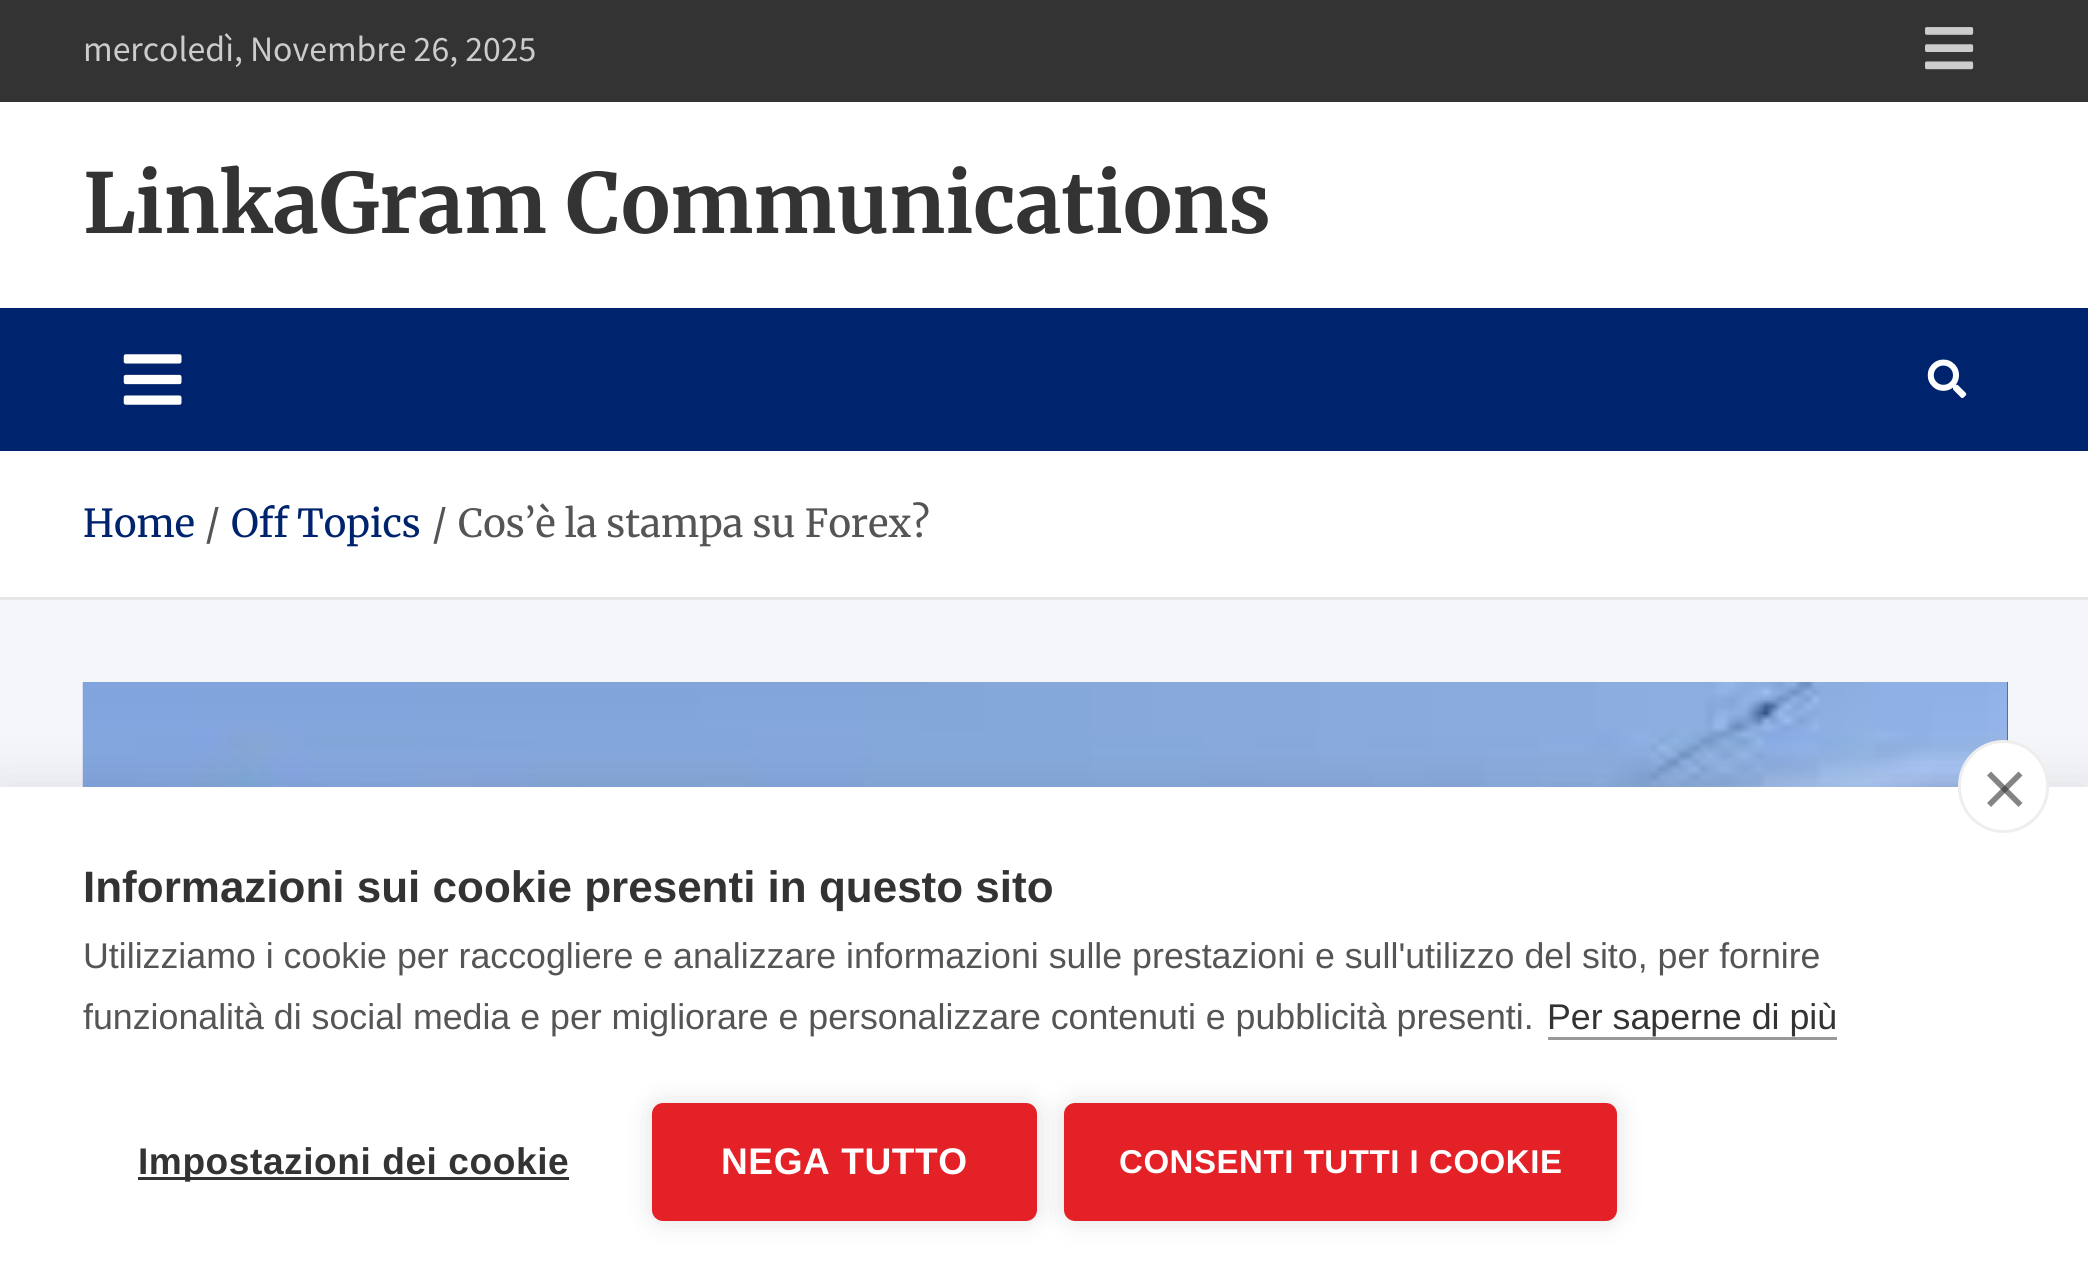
#include <cairo.h>
#include <math.h>
#include <stddef.h>

static cairo_t *c;
static void C(unsigned color){cairo_set_source_rgb(c, (color >> 16) / 255.0, (color >> 8 & 255) / 255.0, (color & 255) / 255.0);}
static void F(const char *family, double size, int italic, int bold){cairo_select_font_face(c, family, italic ? CAIRO_FONT_SLANT_ITALIC : CAIRO_FONT_SLANT_NORMAL,bold ? CAIRO_FONT_WEIGHT_BOLD : CAIRO_FONT_WEIGHT_NORMAL);cairo_set_font_size(c, size);}
static void T(double x, double y, const char *s){cairo_move_to(c, x, y);cairo_show_text(c, s);}
static void L(double x, double y, const char *s, double letter, double word){cairo_move_to(c, x, y);while (*s) {char ch[5] = {0};int n = 0;do ch[n++] = *s++; while ((*s & 0xC0) == 0x80);cairo_show_text(c, ch);cairo_rel_move_to(c, letter + word * (*ch == ' '), 0);}}
static void R(double x, double y, double w, double h){cairo_rectangle(c, x, y, w, h);cairo_fill(c);}
static void Q(double x, double y, double w, double h, double r){cairo_new_sub_path(c);cairo_arc(c, x + w - r, y + h - r, r, 0, M_PI / 2);cairo_arc(c, x + r, y + h - r, r, M_PI / 2, M_PI);cairo_arc(c, x + r, y + r, r, M_PI, 1.5 * M_PI);cairo_arc(c, x + w - r, y + r, r, 1.5 * M_PI, 2 * M_PI);cairo_close_path(c);}
static void S(double x, double y, double w, double h, double r, double blur, double alpha){cairo_push_group_with_content(c, CAIRO_CONTENT_ALPHA);cairo_set_operator(c, CAIRO_OPERATOR_SOURCE);for (int i = 15; i >= -15 && fmin(w, h) + blur * i / 3 > 0; i -= 2) {double e = blur * i / 6;cairo_set_source_rgba(c, 0, 0, 0, alpha * erfc((i - 1) / 8.5) / 2);Q(x - e, y - e, w + 2 * e, h + 2 * e, fmax(0, fmin(r + e + blur * .6, fmin(w, h) / 2 + e)));cairo_fill(c);}cairo_pattern_t *soft = cairo_pop_group(c);cairo_mask(c, soft);cairo_pattern_destroy(soft);}
static void I(const char *path, double x, double y, double w, double h){cairo_surface_t *image = cairo_image_surface_create_from_png(path);cairo_save(c);cairo_set_source_surface(c, image, x, y);cairo_rectangle(c, x, y, w, h);cairo_fill(c);cairo_restore(c);cairo_surface_destroy(image);}
int main(void) {
cairo_surface_t *surface = cairo_image_surface_create(CAIRO_FORMAT_RGB24, 2088, 1288);
c = cairo_create(surface);
cairo_font_options_t *options = cairo_font_options_create();
cairo_font_options_set_hint_metrics(options, CAIRO_HINT_METRICS_OFF);
cairo_font_options_set_hint_style(options, CAIRO_HINT_STYLE_NONE);
cairo_set_font_options(c, options);
cairo_set_miter_limit(c, 4);
C(0xf4f6f9);
cairo_paint(c);
C(0x333333);
R(0,0,2088,102);
F("Source Sans Pro",35.75,0,0);
C(0xcccccc);
T(83,61,"mercoledì, Novembre 26, 2025");
I("1.png",1925,27,49,43);
C(0xffffff);
R(0,102,2088,206);
F("Merriweather",82.5,0,1);
C(0x333333);
T(83,233,"LinkaGram Communications");
C(0x00236e);
R(0,308,2088,143);
I("2.png",123,354,59,51);
I("3.png",1927,359,40,39);
C(0xffffff);
R(0,451,2088,146);
C(0xe6e6e6);
R(0,597,2088,3);
F("Merriweather",38.5,0,0);
C(0x00236e);
T(83,537,"Home");
C(0x555555);
T(205,537,"/");
C(0x00236e);
T(231,537,"Off Topics");
C(0x555555);
T(432,537,"/");
T(458,537,"Cos’è la stampa su Forex?");
R(2007,682,1,59);
I("4.png",82,682,1926,105);
C(0x000000);
S(0,787,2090,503,0,27.5,.1);
C(0xffffff);
R(0,787,2088,501);
Q(1959.5,741.5,88,90,44);
cairo_fill_preserve(c);
C(0xeeeeee);
cairo_set_line_width(c,3);
cairo_stroke(c);
C(0x858585);
cairo_new_path(c);
cairo_move_to(c,1987,803);
cairo_line_to(c,2018.5,771.5);
cairo_line_to(c,2022.5,775.5);
cairo_line_to(c,1991,807);
cairo_close_path(c);
cairo_fill(c);
cairo_set_source_rgba(c,0.2,0.2,0.2,0.6);
cairo_new_path(c);
cairo_move_to(c,1991,771.5);
cairo_line_to(c,2022.5,803);
cairo_line_to(c,2018.5,807);
cairo_line_to(c,1987,775.5);
cairo_close_path(c);
cairo_fill(c);
F("Liberation Sans",44,0,1);
C(0x333333);
T(83,902,"Informazioni sui cookie presenti in questo sito");
F("Liberation Sans",35.75,0,0);
C(0x555555);
T(83,968,"Utilizziamo i cookie per raccogliere e analizzare informazioni sulle prestazioni e sull'utilizzo del sito, per fornire");
T(83,1029,"funzionalità di social media e per migliorare e personalizzare contenuti e pubblicità presenti.");
C(0x333333);
T(1547,1029,"Per saperne di più");
C(0x999999);
R(1548,1037,289,3);
C(0x333333);
R(138,1177,431,3);
F("Liberation Sans",37.1,0,1);
L(138,1174,"Impostazioni dei cookie",.55,0);
C(0x000000);
S(652,1103,385,118,11,14,.12);
C(0xe42127);
Q(652,1103,385,118,11);
cairo_fill(c);
C(0xffffff);
L(721,1174,"NEGA TUTTO",.55,0);
C(0x000000);
S(1064,1103,553,118,11,14,.12);
C(0xe42127);
Q(1064,1103,553,118,11);
cairo_fill(c);
F("Liberation Sans",33,0,1);
C(0xffffff);
L(1119,1173,"CONSENTI TUTTI I COOKIE",.55,0);
cairo_surface_write_to_png(surface, "o.png");
cairo_font_options_destroy(options);
cairo_destroy(c);
cairo_surface_destroy(surface);
return 0;
}
